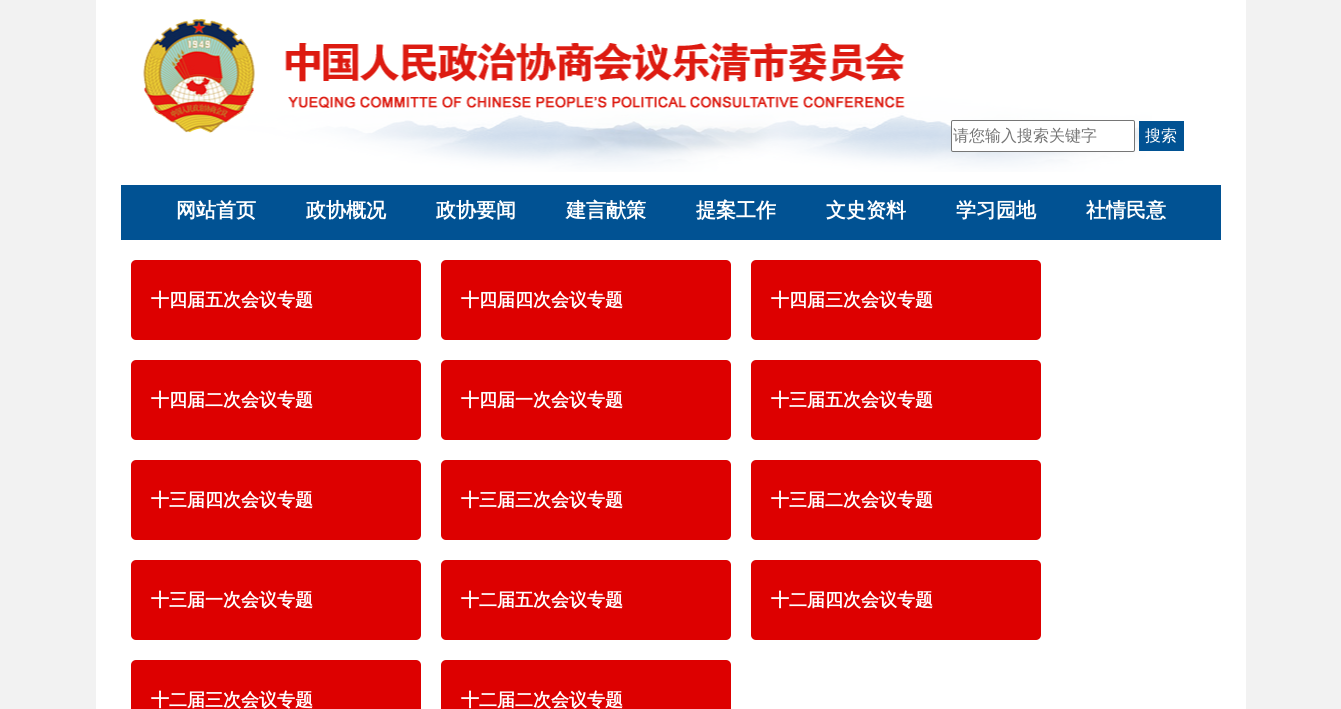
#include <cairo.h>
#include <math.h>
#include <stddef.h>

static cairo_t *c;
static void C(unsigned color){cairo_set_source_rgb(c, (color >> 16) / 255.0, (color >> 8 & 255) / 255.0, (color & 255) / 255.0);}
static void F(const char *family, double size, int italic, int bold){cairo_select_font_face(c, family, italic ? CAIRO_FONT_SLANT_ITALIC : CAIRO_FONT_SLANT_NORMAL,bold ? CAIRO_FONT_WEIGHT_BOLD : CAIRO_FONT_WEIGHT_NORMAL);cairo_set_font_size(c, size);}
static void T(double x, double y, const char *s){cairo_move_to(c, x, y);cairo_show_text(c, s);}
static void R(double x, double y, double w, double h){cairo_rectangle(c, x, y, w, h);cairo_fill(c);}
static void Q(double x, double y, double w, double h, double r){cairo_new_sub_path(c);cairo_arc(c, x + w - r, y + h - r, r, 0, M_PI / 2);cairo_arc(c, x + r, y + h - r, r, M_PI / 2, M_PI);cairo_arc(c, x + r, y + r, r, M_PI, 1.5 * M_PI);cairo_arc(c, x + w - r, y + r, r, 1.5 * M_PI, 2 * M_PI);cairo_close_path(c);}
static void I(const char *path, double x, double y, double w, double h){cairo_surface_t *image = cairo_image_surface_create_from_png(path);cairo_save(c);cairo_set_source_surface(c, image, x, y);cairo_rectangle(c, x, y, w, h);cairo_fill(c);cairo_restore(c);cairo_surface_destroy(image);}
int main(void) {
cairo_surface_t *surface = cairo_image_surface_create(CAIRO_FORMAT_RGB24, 1341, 709);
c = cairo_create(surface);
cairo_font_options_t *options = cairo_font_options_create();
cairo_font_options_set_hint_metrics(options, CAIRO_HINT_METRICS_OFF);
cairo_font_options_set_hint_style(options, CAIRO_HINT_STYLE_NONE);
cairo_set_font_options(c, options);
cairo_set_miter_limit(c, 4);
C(0xf2f2f2);
cairo_paint(c);
C(0xffffff);
R(96,0,1150,709);
I("1.png",143,19,1009,153);
Q(951.5,120.5,183,31,1.5);
cairo_fill_preserve(c);
C(0x767676);
cairo_set_line_width(c,1);
cairo_stroke(c);
F("WenQuanYi Zen Hei Medium",16,0,0);
C(0x757575);
T(953,141,"请您输入搜索关键字");
C(0x015293);
R(1139,121,45,30);
C(0xffffff);
T(1145,141,"搜索");
C(0x015293);
R(121,185,1100,55);
F("WenQuanYi Zen Hei",20,0,1);
C(0xffffff);
T(176,217,"网站首页");
T(306,217,"政协概况");
T(436,217,"政协要闻");
T(566,217,"建言献策");
T(696,217,"提案工作");
T(826,217,"文史资料");
T(956,217,"学习园地");
T(1086,217,"社情民意");
C(0xdd0000);
Q(131,260,290,80,5);
cairo_fill(c);
F("WenQuanYi Zen Hei",18,0,1);
C(0xffffff);
T(151,306,"十四届五次会议专题");
C(0xdd0000);
Q(441,260,290,80,5);
cairo_fill(c);
C(0xffffff);
T(461,306,"十四届四次会议专题");
C(0xdd0000);
Q(751,260,290,80,5);
cairo_fill(c);
C(0xffffff);
T(771,306,"十四届三次会议专题");
C(0xdd0000);
Q(131,360,290,80,5);
cairo_fill(c);
C(0xffffff);
T(151,406,"十四届二次会议专题");
C(0xdd0000);
Q(441,360,290,80,5);
cairo_fill(c);
C(0xffffff);
T(461,406,"十四届一次会议专题");
C(0xdd0000);
Q(751,360,290,80,5);
cairo_fill(c);
C(0xffffff);
T(771,406,"十三届五次会议专题");
C(0xdd0000);
Q(131,460,290,80,5);
cairo_fill(c);
C(0xffffff);
T(151,506,"十三届四次会议专题");
C(0xdd0000);
Q(441,460,290,80,5);
cairo_fill(c);
C(0xffffff);
T(461,506,"十三届三次会议专题");
C(0xdd0000);
Q(751,460,290,80,5);
cairo_fill(c);
C(0xffffff);
T(771,506,"十三届二次会议专题");
C(0xdd0000);
Q(131,560,290,80,5);
cairo_fill(c);
C(0xffffff);
T(151,606,"十三届一次会议专题");
C(0xdd0000);
Q(441,560,290,80,5);
cairo_fill(c);
C(0xffffff);
T(461,606,"十二届五次会议专题");
C(0xdd0000);
Q(751,560,290,80,5);
cairo_fill(c);
C(0xffffff);
T(771,606,"十二届四次会议专题");
C(0xdd0000);
Q(131,660,290,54,5);
cairo_fill(c);
C(0xffffff);
T(151,706,"十二届三次会议专题");
C(0xdd0000);
Q(441,660,290,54,5);
cairo_fill(c);
C(0xffffff);
T(461,706,"十二届二次会议专题");
cairo_surface_write_to_png(surface, "o.png");
cairo_font_options_destroy(options);
cairo_destroy(c);
cairo_surface_destroy(surface);
return 0;
}
